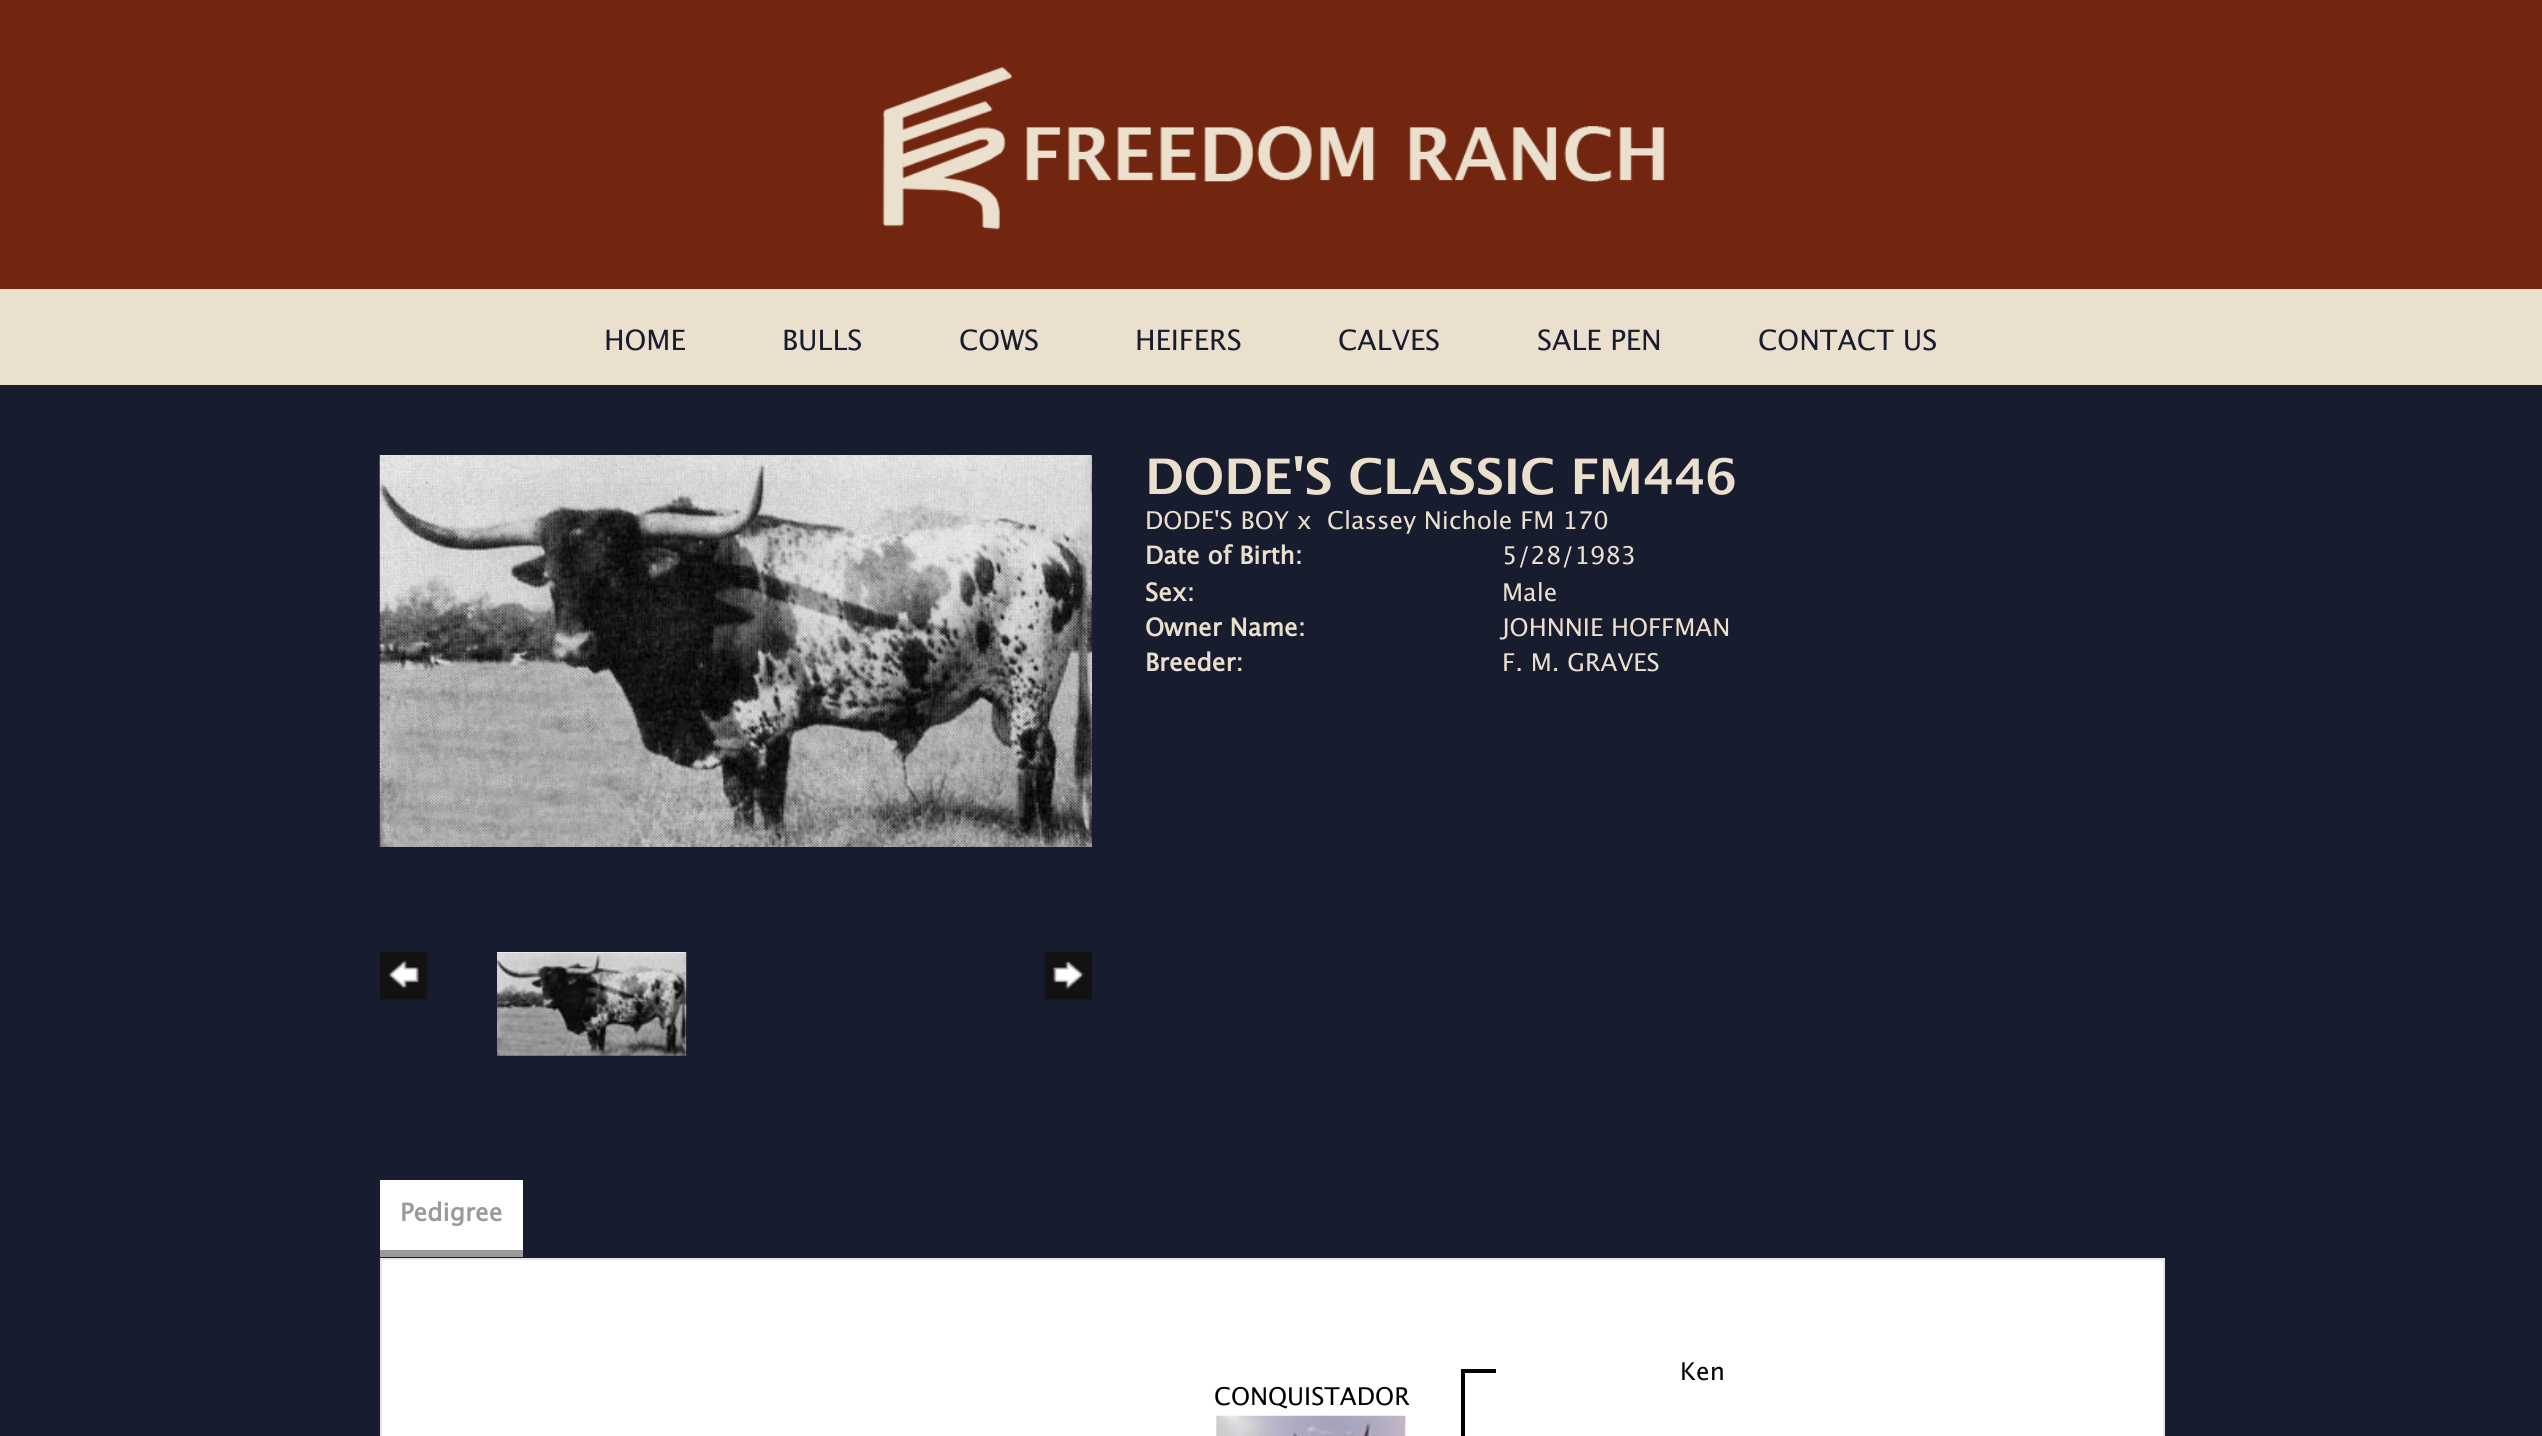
#include <cairo.h>
#include <math.h>
#include <stddef.h>

static cairo_t *c;
static void C(unsigned color){cairo_set_source_rgb(c, (color >> 16) / 255.0, (color >> 8 & 255) / 255.0, (color & 255) / 255.0);}
static void F(const char *family, double size, int italic, int bold){cairo_select_font_face(c, family, italic ? CAIRO_FONT_SLANT_ITALIC : CAIRO_FONT_SLANT_NORMAL,bold ? CAIRO_FONT_WEIGHT_BOLD : CAIRO_FONT_WEIGHT_NORMAL);cairo_set_font_size(c, size);}
static void T(double x, double y, const char *s){cairo_move_to(c, x, y);cairo_show_text(c, s);}
static void R(double x, double y, double w, double h){cairo_rectangle(c, x, y, w, h);cairo_fill(c);}
static void I(const char *path, double x, double y, double w, double h){cairo_surface_t *image = cairo_image_surface_create_from_png(path);cairo_save(c);cairo_set_source_surface(c, image, x, y);cairo_rectangle(c, x, y, w, h);cairo_fill(c);cairo_restore(c);cairo_surface_destroy(image);}
int main(void) {
cairo_surface_t *surface = cairo_image_surface_create(CAIRO_FORMAT_RGB24, 2542, 1436);
c = cairo_create(surface);
cairo_font_options_t *options = cairo_font_options_create();
cairo_font_options_set_hint_metrics(options, CAIRO_HINT_METRICS_OFF);
cairo_font_options_set_hint_style(options, CAIRO_HINT_STYLE_NONE);
cairo_set_font_options(c, options);
cairo_set_miter_limit(c, 4);
C(0x181c2f);
cairo_paint(c);
C(0x72250f);
R(0,0,2542,289);
I("1.png",882,67,783,163);
C(0xebe0cd);
R(0,289,2542,96);
F("Lucida Grande",28,0,0);
C(0x181c2f);
T(604,350,"HOME");
T(782,350,"BULLS");
T(959,350,"COWS");
T(1135,350,"HEIFERS");
T(1338,350,"CALVES");
T(1537,350,"SALE PEN");
T(1758,350,"CONTACT US");
I("2.png",379,455,713,392);
I("3.png",380,952,47,48);
C(0xffffff);
R(497,952,189,103);
I("4.png",497,952,190,104);
I("5.png",1044,952,48,48);
F("Lucida Grande",49,0,1);
C(0xebe0cd);
T(1145,494,"DODE'S CLASSIC FM446");
F("Lucida Grande",24.5,0,0);
T(1145,529,"DODE'S BOY x");
T(1327,529,"Classey Nichole FM 170");
F("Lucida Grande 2",24.5,0,1);
T(1145,564,"Date of Birth:");
F("Lucida Grande",24.5,0,0);
T(1502,564,"5/28/1983");
F("Lucida Grande 2",24.5,0,1);
T(1145,601,"Sex:");
F("Lucida Grande",24.5,0,0);
T(1502,601,"Male");
F("Lucida Grande 2",24.5,0,1);
T(1145,636,"Owner Name:");
F("Lucida Grande",24.5,0,0);
T(1502,636,"JOHNNIE HOFFMAN");
F("Lucida Grande 2",24.5,0,1);
T(1145,671,"Breeder:");
F("Lucida Grande",24.5,0,0);
T(1502,671,"F. M. GRAVES");
C(0xe5e5e5);
R(380,1258,1785,2);
C(0x9b9999);
R(380,1250,143,7);
C(0xffffff);
R(380,1180,143,70);
F("Lucida Grande 2",24.5,0,1);
C(0x9b9999);
T(400,1221,"Pedigree");
C(0xffffff);
R(382,1260,1781,176);
C(0xe5e5e5);
cairo_set_fill_rule(c,CAIRO_FILL_RULE_EVEN_ODD);
cairo_new_path(c);
cairo_move_to(c,380,1260);
cairo_line_to(c,2165,1260);
cairo_line_to(c,2165,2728);
cairo_curve_to(c,2165,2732,2162,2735,2158,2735);
cairo_line_to(c,387,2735);
cairo_curve_to(c,383,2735,380,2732,380,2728);
cairo_close_path(c);
cairo_move_to(c,382,1260);
cairo_line_to(c,2163,1260);
cairo_line_to(c,2163,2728);
cairo_curve_to(c,2163,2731,2161,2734,2158,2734);
cairo_line_to(c,387,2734);
cairo_curve_to(c,384,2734,382,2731,382,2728);
cairo_close_path(c);
cairo_fill(c);
F("Lucida Grande",24.5,0,0);
C(0x000000);
T(1214,1405,"CONQUISTADOR");
I("6.png",1216,1415,190,21);
R(1461,1369,35,4);
R(1461,1369,4,67);
T(1680,1380,"Ken");
cairo_surface_write_to_png(surface, "o.png");
cairo_font_options_destroy(options);
cairo_destroy(c);
cairo_surface_destroy(surface);
return 0;
}
